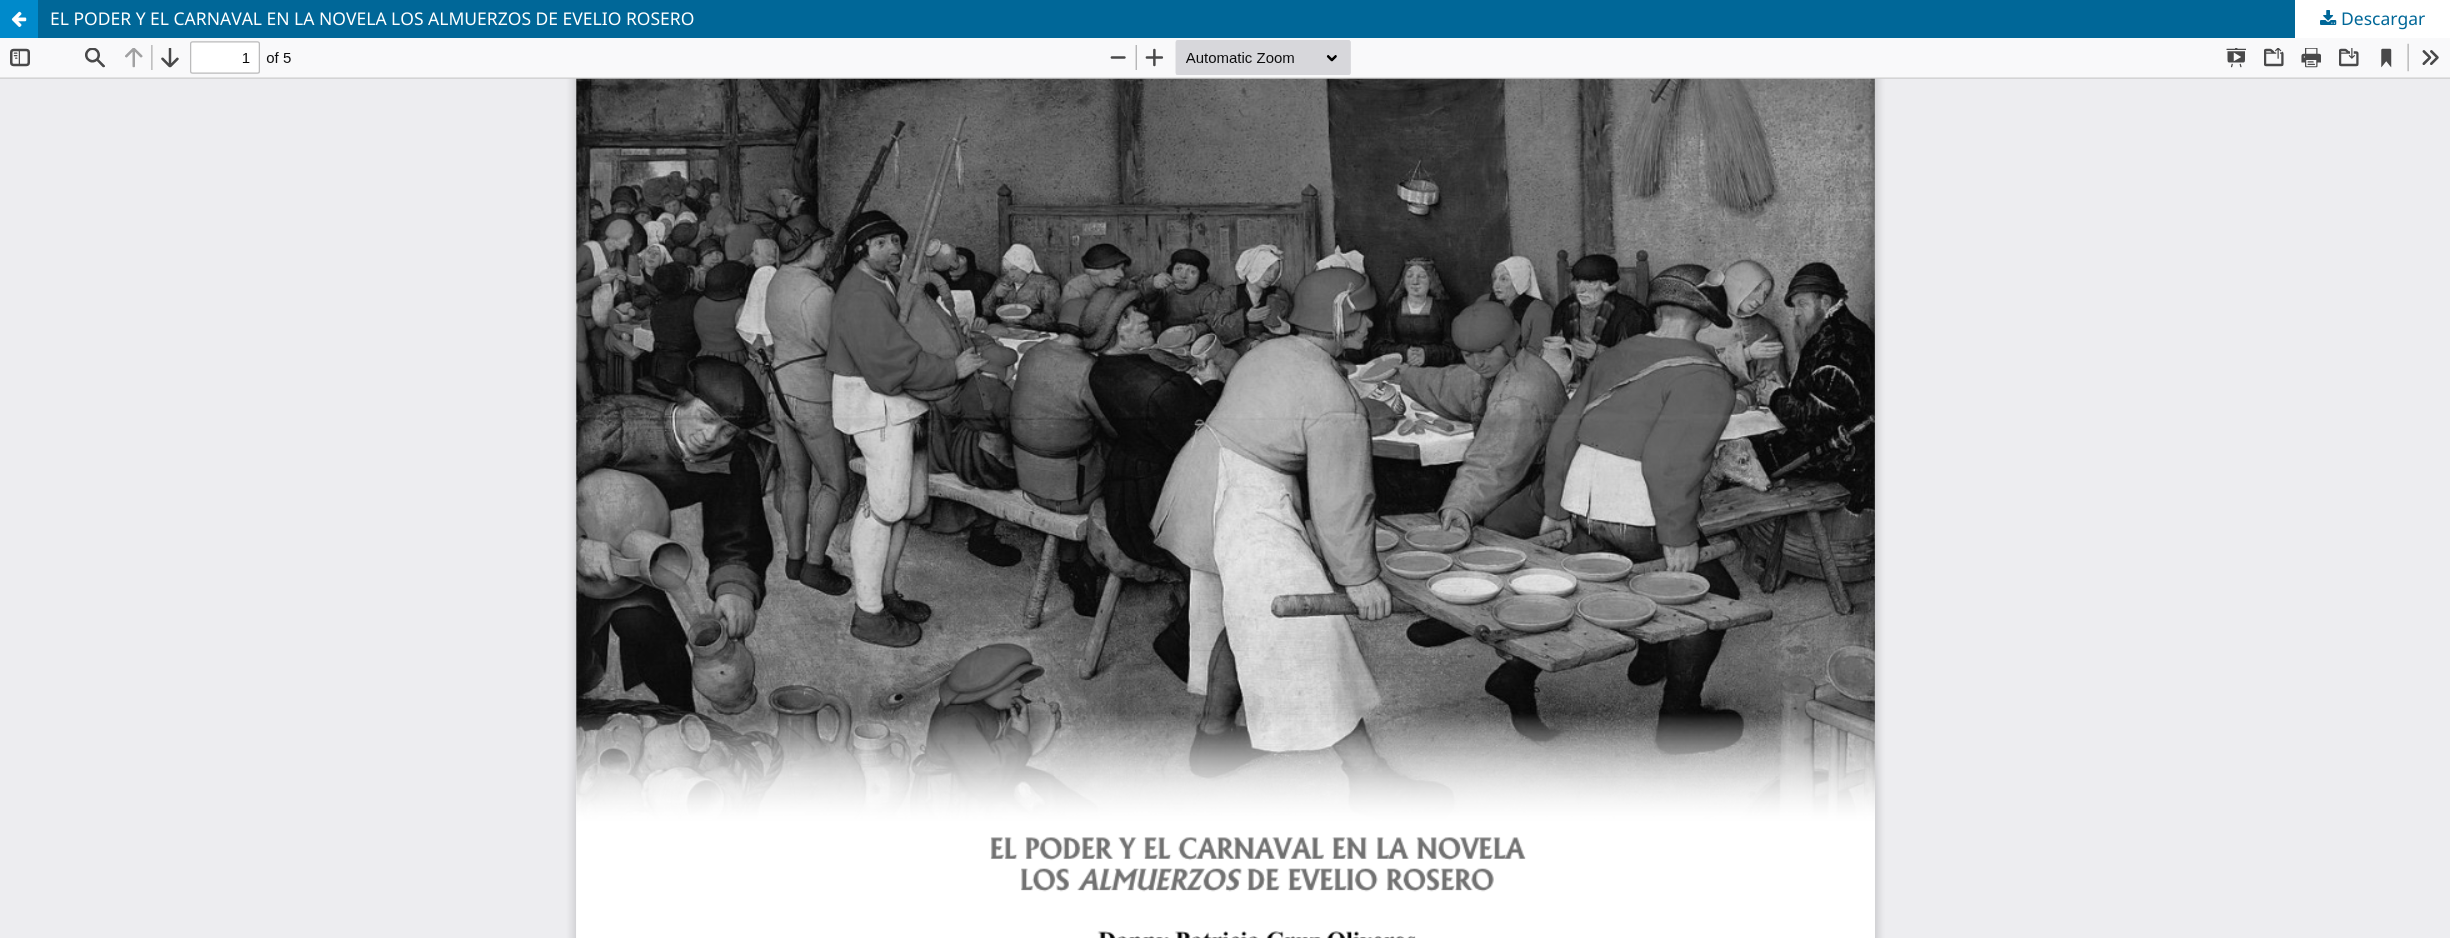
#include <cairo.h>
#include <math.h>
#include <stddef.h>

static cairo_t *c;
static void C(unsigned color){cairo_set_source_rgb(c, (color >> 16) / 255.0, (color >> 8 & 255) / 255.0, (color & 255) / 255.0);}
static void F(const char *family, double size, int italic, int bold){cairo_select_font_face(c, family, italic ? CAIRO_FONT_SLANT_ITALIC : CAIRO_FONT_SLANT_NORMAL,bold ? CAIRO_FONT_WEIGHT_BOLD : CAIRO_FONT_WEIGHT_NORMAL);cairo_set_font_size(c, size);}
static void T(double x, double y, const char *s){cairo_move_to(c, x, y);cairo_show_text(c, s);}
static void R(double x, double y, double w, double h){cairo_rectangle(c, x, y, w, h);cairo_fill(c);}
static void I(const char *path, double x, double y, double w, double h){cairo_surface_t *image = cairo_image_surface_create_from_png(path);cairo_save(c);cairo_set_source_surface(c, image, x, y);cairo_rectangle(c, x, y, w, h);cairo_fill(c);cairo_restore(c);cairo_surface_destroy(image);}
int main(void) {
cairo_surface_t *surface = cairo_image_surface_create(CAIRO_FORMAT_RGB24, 2450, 938);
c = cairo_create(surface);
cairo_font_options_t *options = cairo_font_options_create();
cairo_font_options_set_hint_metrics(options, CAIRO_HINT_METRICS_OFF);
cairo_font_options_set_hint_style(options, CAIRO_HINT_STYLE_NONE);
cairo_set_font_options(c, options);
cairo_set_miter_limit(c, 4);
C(0xffffff);
cairo_paint(c);
C(0x006798);
R(38,0,2257,38);
C(0x008acb);
R(0,0,38,38);
I("1.png",11,11,16,16);
F("Noto Sans",17.5,0,0);
C(0xffffff);
T(50,25,"EL PODER Y EL CARNAVAL EN LA NOVELA LOS ALMUERZOS DE EVELIO ROSERO");
I("2.png",2320,10,17,15);
C(0x006798);
T(2341,25,"Descargar");
I("3.png",0,38,2450,900);
cairo_surface_write_to_png(surface, "o.png");
cairo_font_options_destroy(options);
cairo_destroy(c);
cairo_surface_destroy(surface);
return 0;
}
